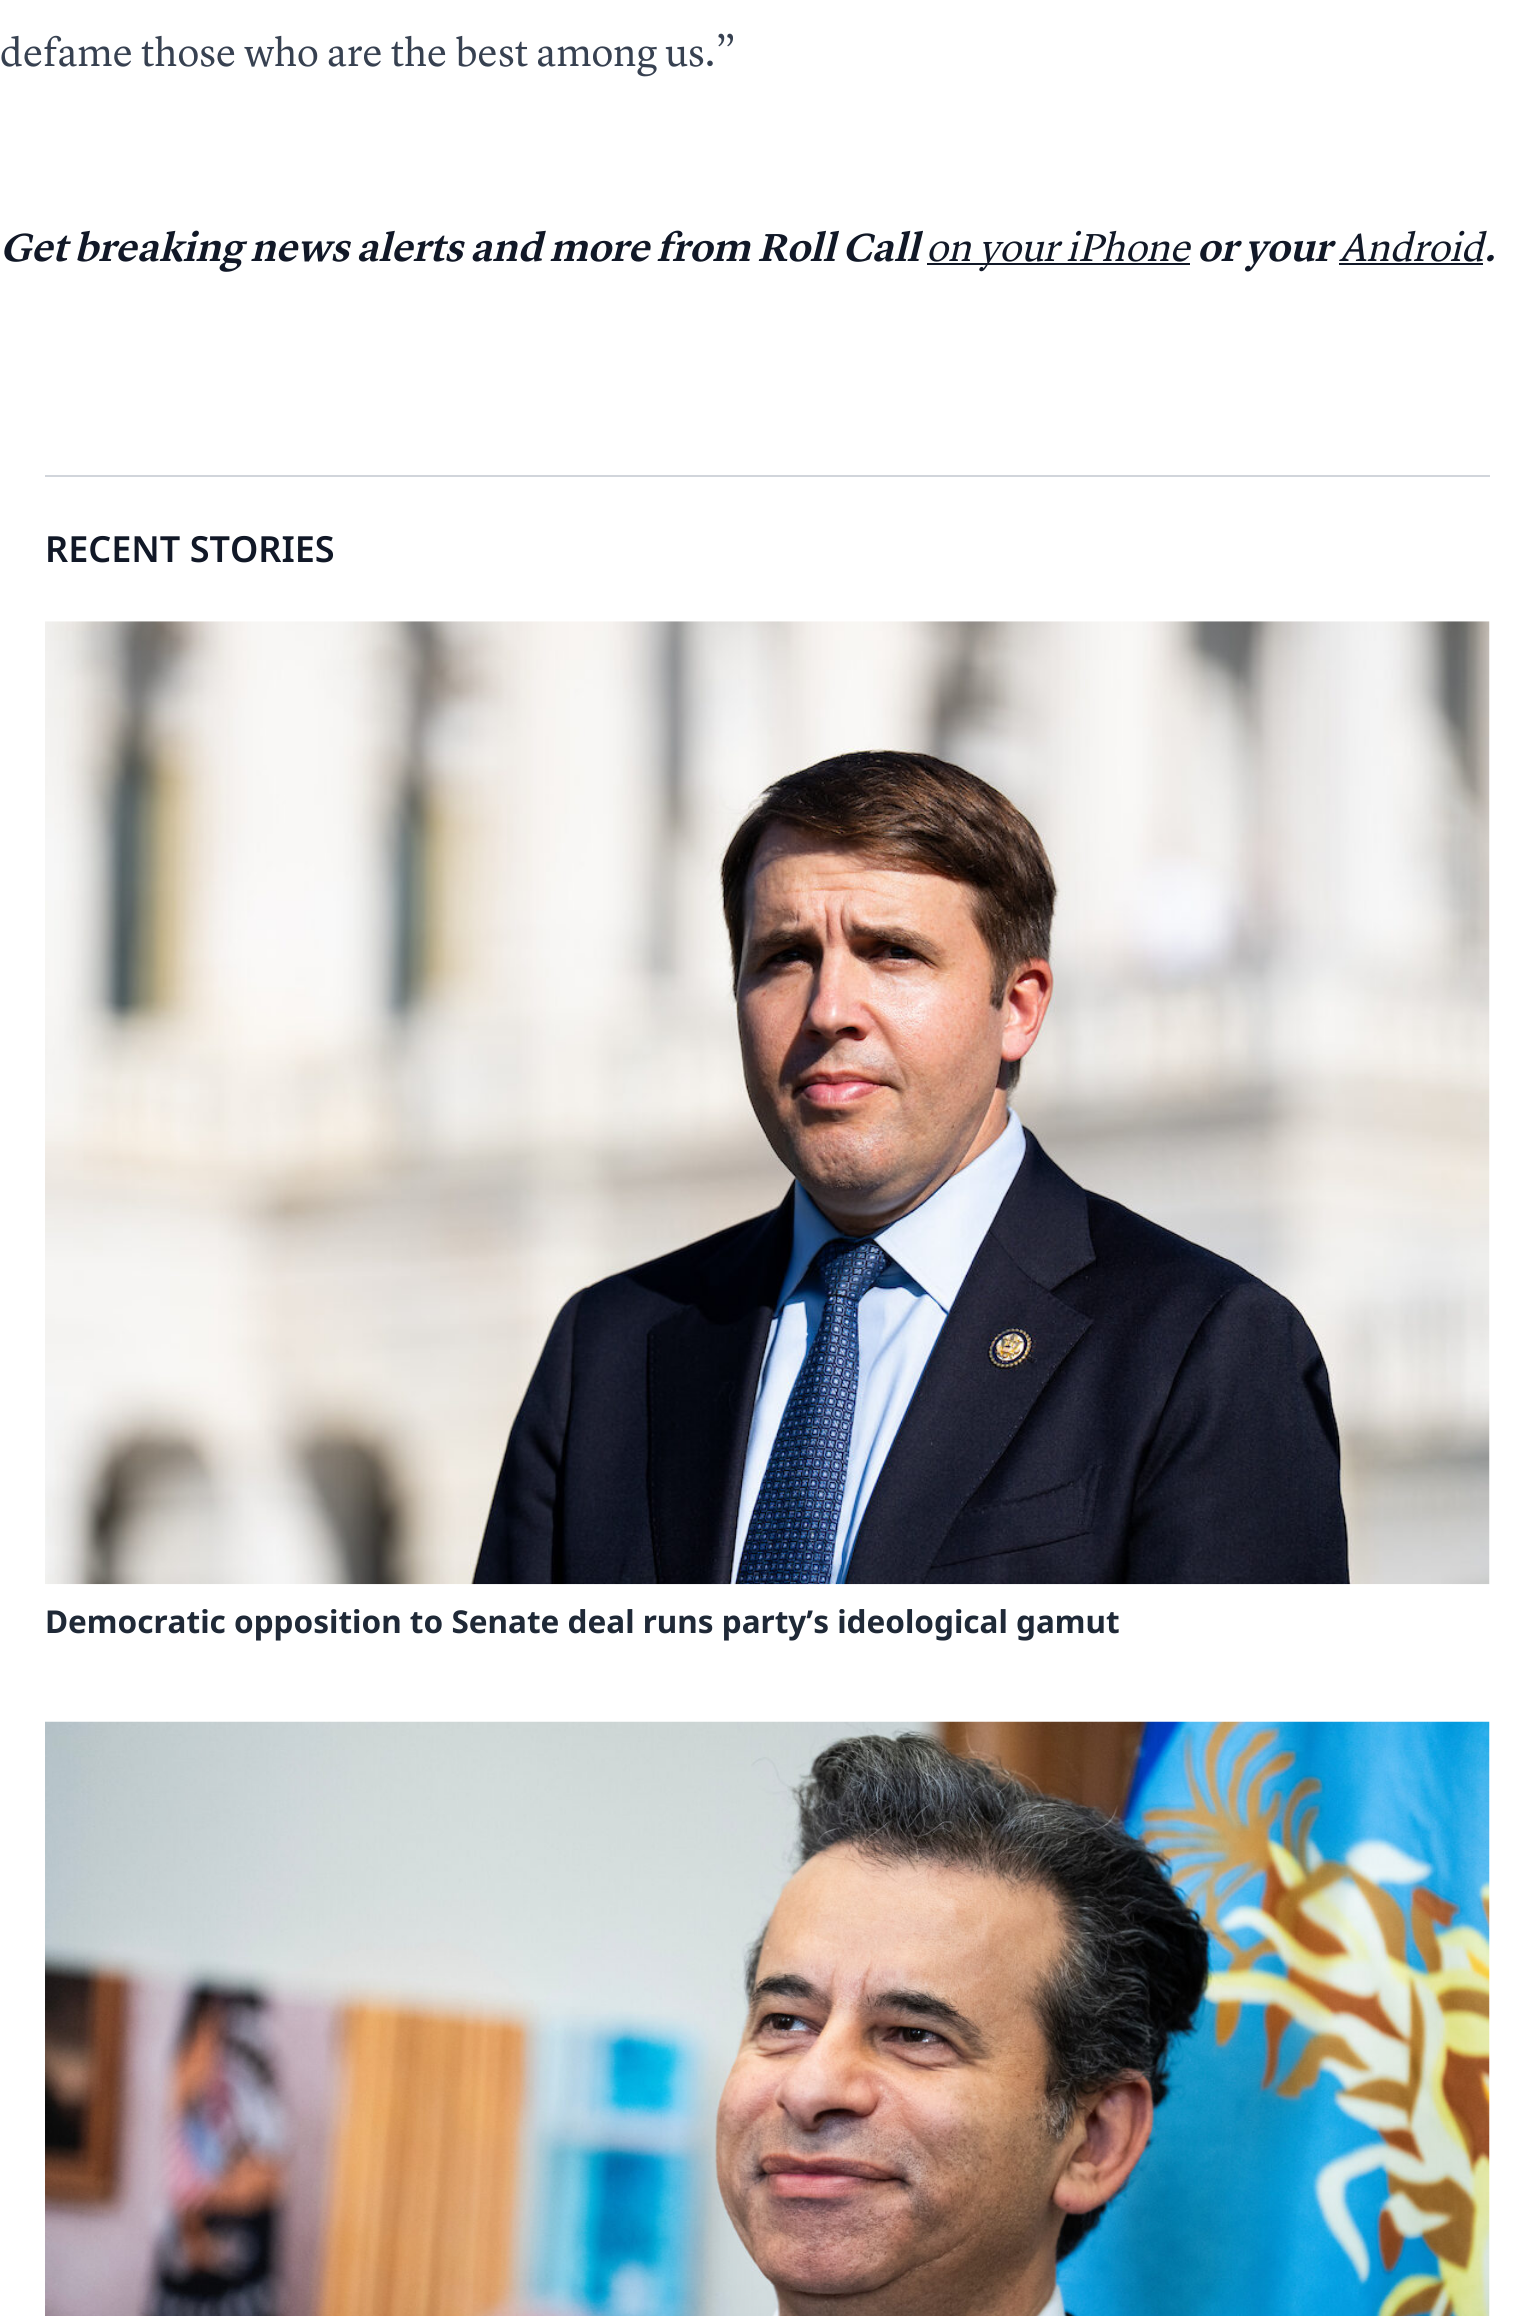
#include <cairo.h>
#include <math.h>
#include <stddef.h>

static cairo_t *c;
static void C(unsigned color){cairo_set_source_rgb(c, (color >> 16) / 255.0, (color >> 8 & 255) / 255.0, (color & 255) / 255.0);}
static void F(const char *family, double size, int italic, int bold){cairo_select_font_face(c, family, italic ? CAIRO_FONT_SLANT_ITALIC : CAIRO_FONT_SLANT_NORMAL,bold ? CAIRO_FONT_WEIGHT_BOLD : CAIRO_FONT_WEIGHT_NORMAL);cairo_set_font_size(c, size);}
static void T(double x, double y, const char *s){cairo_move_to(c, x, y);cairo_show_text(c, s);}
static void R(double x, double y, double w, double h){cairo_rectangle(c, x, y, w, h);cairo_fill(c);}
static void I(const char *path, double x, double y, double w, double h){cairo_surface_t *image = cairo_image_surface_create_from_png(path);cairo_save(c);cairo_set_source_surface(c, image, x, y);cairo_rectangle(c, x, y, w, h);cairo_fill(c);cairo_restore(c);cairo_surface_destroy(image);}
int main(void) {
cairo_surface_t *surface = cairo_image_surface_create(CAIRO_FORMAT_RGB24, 1533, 2316);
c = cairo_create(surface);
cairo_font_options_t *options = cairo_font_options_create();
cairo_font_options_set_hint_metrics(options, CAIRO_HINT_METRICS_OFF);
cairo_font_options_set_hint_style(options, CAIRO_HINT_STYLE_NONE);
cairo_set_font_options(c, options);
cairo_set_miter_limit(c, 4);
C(0xffffff);
cairo_paint(c);
F("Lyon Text",40.5,0,0);
C(0x374151);
T(0,66,"defame those who are the best among us.”");
F("Lyon Text SemiBold",40.5,1,0);
C(0x111827);
T(0,261,"Get breaking news alerts and more from Roll Call");
R(927,263,263,2);
F("Lyon Text",40.5,1,0);
T(926,261,"on your iPhone");
F("Lyon Text SemiBold",40.5,1,0);
T(1197,261,"or your");
F("Lyon Text",40.5,1,0);
T(1339,261,"Android");
F("Lyon Text SemiBold",40.5,1,0);
T(1484,261,".");
R(1339,263,144,2);
C(0xd1d5db);
R(45,475,1445,2);
F("Noto Sans SemiBold",36,0,0);
C(0x111827);
T(45,562,"RECENT STORIES");
I("1.png",45,621,1445,964);
F("Noto Sans",31.5,0,1);
C(0x1f2937);
T(45,1633,"Democratic opposition to Senate deal runs party’s ideological gamut");
I("2.png",45,1721,1445,595);
cairo_surface_write_to_png(surface, "o.png");
cairo_font_options_destroy(options);
cairo_destroy(c);
cairo_surface_destroy(surface);
return 0;
}
